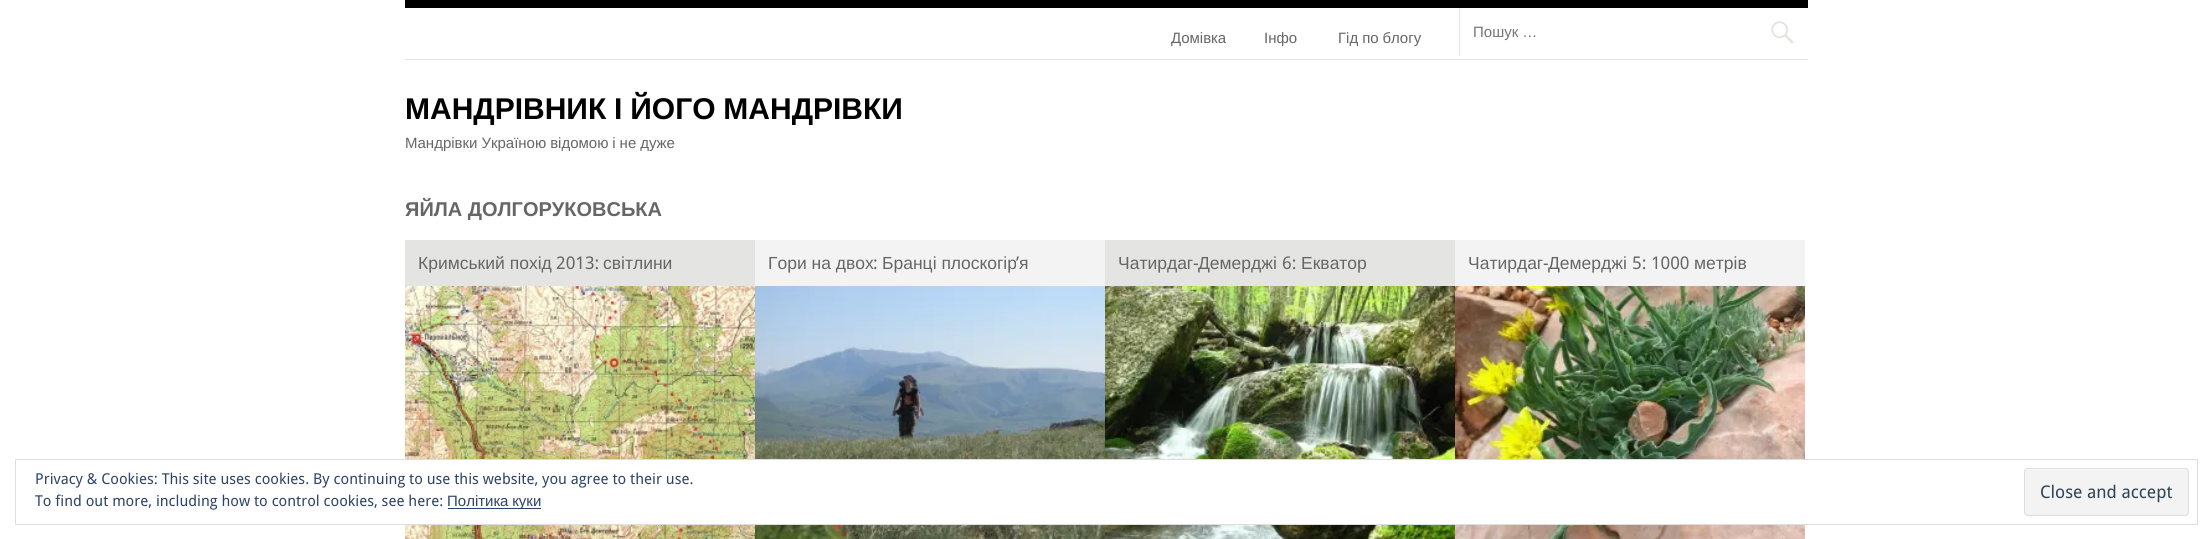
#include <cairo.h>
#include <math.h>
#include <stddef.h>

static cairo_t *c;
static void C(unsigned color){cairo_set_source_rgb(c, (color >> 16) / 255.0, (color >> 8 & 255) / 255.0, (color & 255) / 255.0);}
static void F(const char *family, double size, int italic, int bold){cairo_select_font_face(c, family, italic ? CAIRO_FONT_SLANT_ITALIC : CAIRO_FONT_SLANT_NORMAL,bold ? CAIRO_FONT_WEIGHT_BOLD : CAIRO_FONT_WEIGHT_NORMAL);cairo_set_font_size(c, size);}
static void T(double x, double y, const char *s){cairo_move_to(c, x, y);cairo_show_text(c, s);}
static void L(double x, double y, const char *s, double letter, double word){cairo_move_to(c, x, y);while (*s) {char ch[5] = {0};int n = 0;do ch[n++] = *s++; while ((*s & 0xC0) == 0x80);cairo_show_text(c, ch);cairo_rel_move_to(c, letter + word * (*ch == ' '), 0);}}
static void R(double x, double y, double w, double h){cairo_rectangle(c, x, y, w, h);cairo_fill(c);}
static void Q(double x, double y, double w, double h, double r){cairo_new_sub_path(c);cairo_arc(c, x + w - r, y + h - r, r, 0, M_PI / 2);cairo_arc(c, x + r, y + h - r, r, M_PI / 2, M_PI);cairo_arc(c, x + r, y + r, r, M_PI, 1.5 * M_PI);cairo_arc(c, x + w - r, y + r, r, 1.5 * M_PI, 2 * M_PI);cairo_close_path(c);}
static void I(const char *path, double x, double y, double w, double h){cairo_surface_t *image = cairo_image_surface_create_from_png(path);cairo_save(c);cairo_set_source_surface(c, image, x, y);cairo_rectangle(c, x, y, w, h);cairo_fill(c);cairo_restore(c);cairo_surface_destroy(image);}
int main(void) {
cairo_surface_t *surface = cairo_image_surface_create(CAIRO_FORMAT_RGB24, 2212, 539);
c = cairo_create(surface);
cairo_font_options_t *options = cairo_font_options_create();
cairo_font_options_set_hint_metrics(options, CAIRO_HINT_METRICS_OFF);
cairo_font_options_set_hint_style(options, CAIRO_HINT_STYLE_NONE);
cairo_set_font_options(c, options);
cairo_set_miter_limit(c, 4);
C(0xffffff);
cairo_paint(c);
C(0x000000);
R(405,0,1403,8);
C(0xe4e4e2);
R(405,59,1403,1);
F("Liberation Sans",15,0,0);
C(0x666666);
T(1171,43,"Домівка");
T(1264,43,"Інфо");
L(1338,43,"Гід по блогу",0,-.25);
C(0xe4e4e2);
R(1459,8,1,48);
C(0x757575);
L(1473,37,"Пошук …",0,-.25);
I("1.png",1771,21,23,23);
F("Liberation Sans",30,0,1);
C(0x000000);
L(405,119,"МАНДРІВНИК І ЙОГО МАНДРІВКИ",0,-.5);
F("Liberation Sans",15,0,0);
C(0x666666);
L(405,148,"Мандрівки Україною відомою і не дуже",0,-.25);
F("Liberation Sans",20,0,1);
T(405,216,"ЯЙЛА ДОЛГОРУКОВСЬКА");
C(0xe4e4e2);
R(405,240,350,46);
F("Liberation Sans",17.5,0,0);
C(0x666666);
T(418,269,"Кримський похід");
F("Droid Sans",17.5,0,0);
T(556,269,"2013:");
F("Liberation Sans",17.5,0,0);
T(603,269,"світлини");
I("2.png",405,286,350,253);
C(0xf3f3f3);
R(755,240,350,46);
C(0x666666);
T(768,269,"Гори на двох");
T(882,269,"Бранці плоскогір");
F("Droid Sans",17.5,0,0);
T(1016,269,"’");
T(873,269,":");
F("Liberation Sans",17.5,0,0);
T(1019,269,"я");
I("3.png",755,286,350,253);
C(0xe4e4e2);
R(1105,240,350,46);
C(0x666666);
T(1118,269,"Чатирдаг");
F("Droid Sans",17.5,0,0);
T(1193,269,"-");
F("Liberation Sans",17.5,0,0);
T(1198,269,"Демерджі");
F("Droid Sans",17.5,0,0);
T(1282,269,"6:");
F("Liberation Sans",17.5,0,0);
T(1301,269,"Екватор");
I("4.png",1105,286,350,253);
C(0xf3f3f3);
R(1455,240,350,46);
C(0x666666);
T(1468,269,"Чатирдаг");
F("Droid Sans",17.5,0,0);
T(1543,269,"-");
F("Liberation Sans",17.5,0,0);
T(1548,269,"Демерджі");
F("Droid Sans",17.5,0,0);
T(1632,269,"5: 1000");
F("Liberation Sans",17.5,0,0);
T(1694,269,"метрів");
I("5.png",1455,286,350,253);
C(0xffffff);
R(405,460,1400,64);
cairo_rectangle(c,15.5,459.5,2182,65);
C(0xdedede);
cairo_set_line_width(c,1);
cairo_stroke(c);
F("Droid Sans",15,0,0);
C(0x2e4467);
T(35,484,"Privacy & Cookies: This site uses cookies. By continuing to use this website, you agree to their use.");
T(35,506,"To find out more, including how to control cookies, see here:");
R(448,508,93,1);
F("Liberation Sans",15,0,0);
L(447,506,"Політика куки",0,-.25);
C(0xf3f3f3);
Q(2024,468,165,48,4);
cairo_fill(c);
C(0xf9f9f9);
cairo_new_path(c);
cairo_move_to(c,2028,470);
cairo_line_to(c,2185,470);
cairo_curve_to(c,2186,470,2188,471,2188,472);
cairo_curve_to(c,2188,470,2187,469,2186,469);
cairo_line_to(c,2028,469);
cairo_curve_to(c,2026,469,2025,470,2025,472);
cairo_curve_to(c,2025,471,2026,470,2028,470);
cairo_close_path(c);
cairo_fill(c);
Q(2024.5,468.5,164,47,3.5);
C(0xdedede);
cairo_stroke(c);
F("Droid Sans",17.5,0,0);
C(0x2e4453);
T(2040,498,"Close and accept");
cairo_surface_write_to_png(surface, "o.png");
cairo_font_options_destroy(options);
cairo_destroy(c);
cairo_surface_destroy(surface);
return 0;
}
